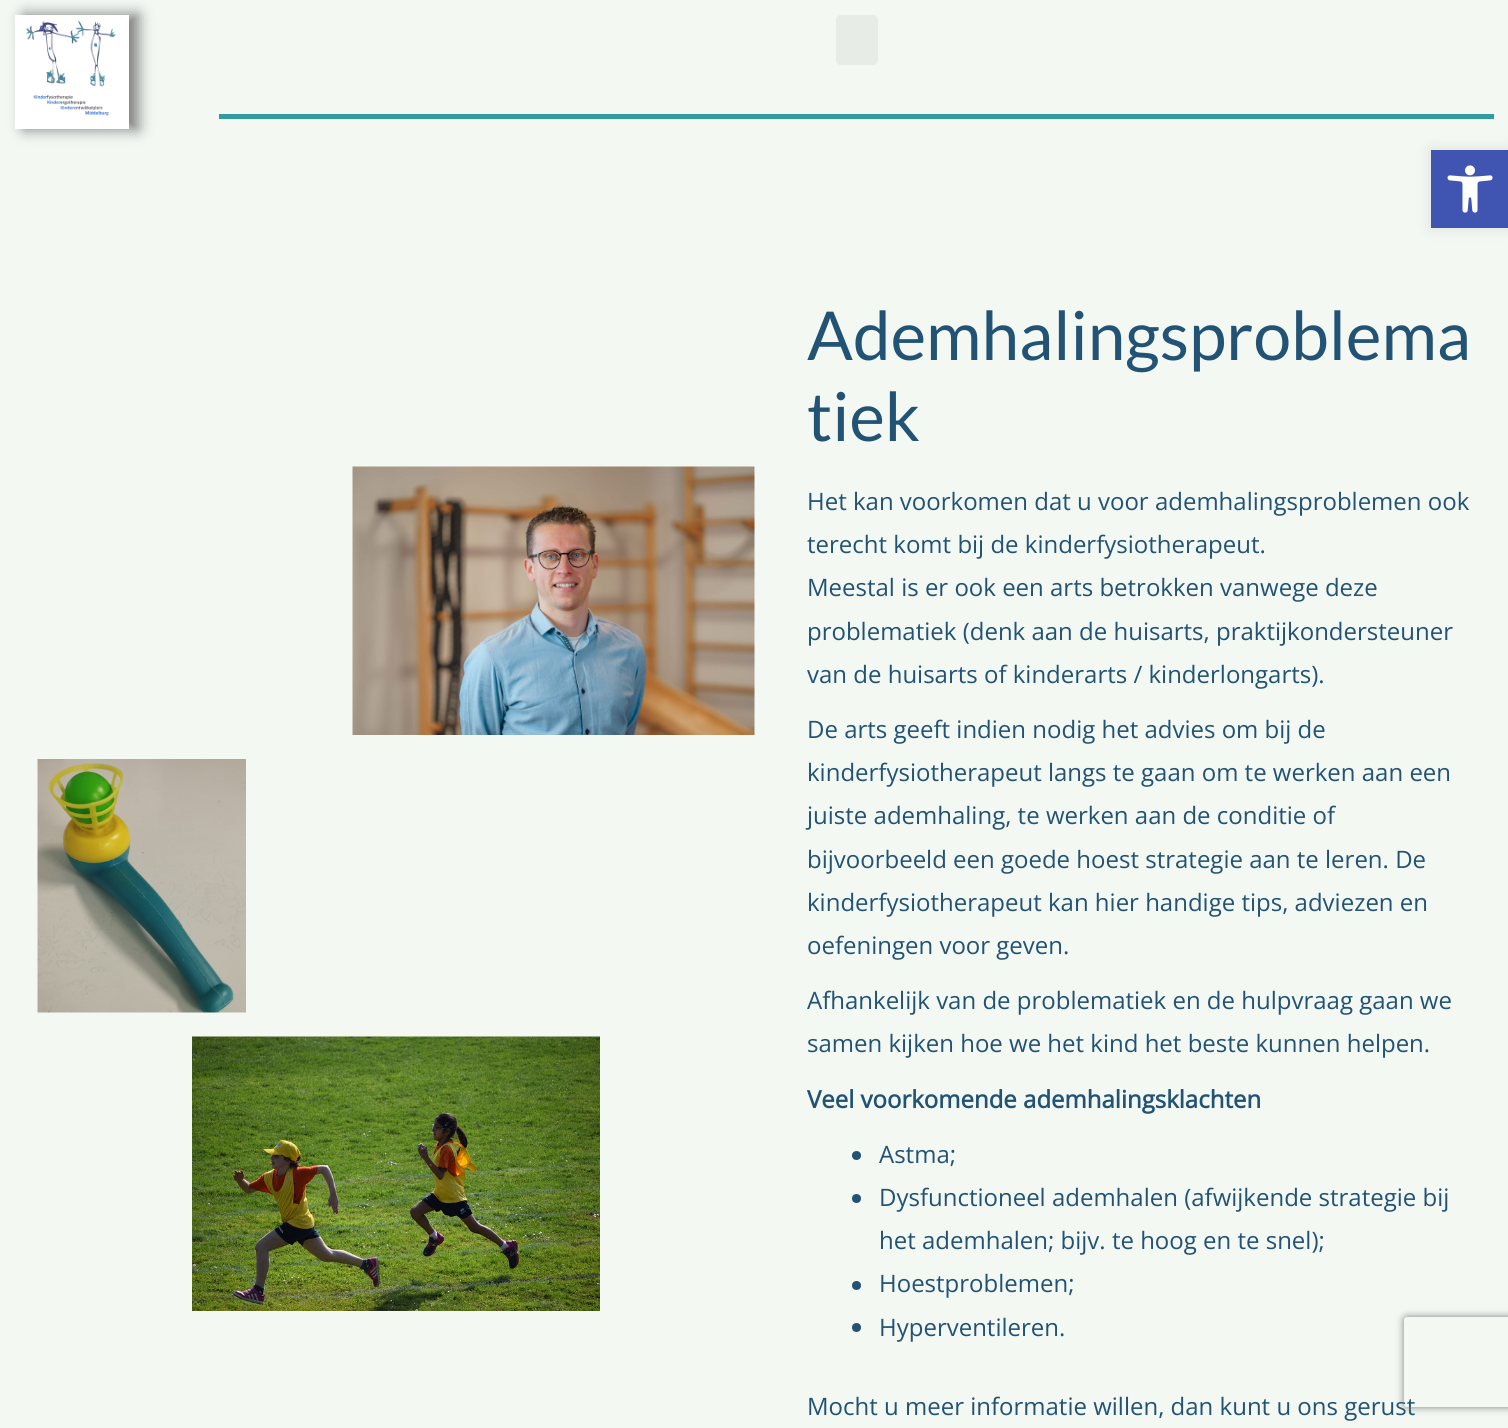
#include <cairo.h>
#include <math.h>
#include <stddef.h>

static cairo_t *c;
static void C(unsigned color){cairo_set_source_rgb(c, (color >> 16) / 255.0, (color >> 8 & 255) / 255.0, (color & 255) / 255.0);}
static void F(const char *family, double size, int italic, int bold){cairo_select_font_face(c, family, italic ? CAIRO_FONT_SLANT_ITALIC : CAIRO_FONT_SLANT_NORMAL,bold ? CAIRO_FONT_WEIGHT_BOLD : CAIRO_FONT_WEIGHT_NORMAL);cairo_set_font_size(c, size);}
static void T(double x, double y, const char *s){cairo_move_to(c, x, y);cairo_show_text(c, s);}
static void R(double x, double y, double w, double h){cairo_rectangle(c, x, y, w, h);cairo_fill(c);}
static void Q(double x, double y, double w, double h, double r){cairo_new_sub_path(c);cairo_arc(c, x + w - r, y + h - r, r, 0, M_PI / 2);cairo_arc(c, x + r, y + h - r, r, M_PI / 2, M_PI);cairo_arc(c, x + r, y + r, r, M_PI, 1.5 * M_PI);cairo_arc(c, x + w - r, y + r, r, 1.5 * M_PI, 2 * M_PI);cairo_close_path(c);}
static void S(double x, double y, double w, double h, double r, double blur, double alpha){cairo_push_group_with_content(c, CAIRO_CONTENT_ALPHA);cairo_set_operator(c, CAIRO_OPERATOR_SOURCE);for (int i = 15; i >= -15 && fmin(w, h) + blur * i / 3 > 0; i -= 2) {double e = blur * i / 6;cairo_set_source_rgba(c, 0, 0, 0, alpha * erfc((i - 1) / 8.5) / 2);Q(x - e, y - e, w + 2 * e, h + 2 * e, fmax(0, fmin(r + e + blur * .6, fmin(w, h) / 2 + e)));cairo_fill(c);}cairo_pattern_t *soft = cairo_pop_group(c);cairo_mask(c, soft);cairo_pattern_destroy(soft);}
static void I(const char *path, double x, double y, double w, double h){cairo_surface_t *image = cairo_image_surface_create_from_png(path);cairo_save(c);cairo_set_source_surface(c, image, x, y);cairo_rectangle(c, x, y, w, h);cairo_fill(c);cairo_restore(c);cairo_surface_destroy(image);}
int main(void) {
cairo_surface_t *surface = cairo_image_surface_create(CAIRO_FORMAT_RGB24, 1508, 1428);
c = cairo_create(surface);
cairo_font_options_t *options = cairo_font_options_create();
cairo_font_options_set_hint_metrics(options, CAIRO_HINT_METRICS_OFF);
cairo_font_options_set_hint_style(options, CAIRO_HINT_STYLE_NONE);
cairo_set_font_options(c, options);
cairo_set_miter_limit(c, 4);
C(0xf3f8f3);
cairo_paint(c);
C(0x000000);
S(1431,150,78,78,0,7.5,.1);
C(0x4054b2);
R(1431,150,77,78);
I("1.png",1447,165,46,48);
C(0x000000);
S(24,15,114,114,0,7.5,.5);
I("2.png",15,15,114,114);
C(0xe7ece7);
Q(836,15,42,50,5);
cairo_fill(c);
C(0x319c9d);
R(219,114,1275,5);
I("3.png",352,466,403,269);
I("4.png",37,759,209,254);
I("5.png",192,1036,408,275);
F("Lato",67.5,0,0);
C(0x225374);
T(807,360,"Ademhalingsproblema");
T(807,441,"tiek");
F("Open Sans",24,0,0);
T(807,510,"Het kan voorkomen dat u voor ademhalingsproblemen ook");
T(807,553,"terecht komt bij de kinderfysiotherapeut.");
T(807,596,"Meestal is er ook een arts betrokken vanwege deze");
T(807,640,"problematiek (denk aan de huisarts, praktijkondersteuner");
T(807,683,"van de huisarts of kinderarts / kinderlongarts).");
T(807,738,"De arts geeft indien nodig het advies om bij de");
T(807,781,"kinderfysiotherapeut langs te gaan om te werken aan een");
T(807,824,"juiste ademhaling, te werken aan de conditie of");
T(807,868,"bijvoorbeeld een goede hoest strategie aan te leren. De");
T(807,911,"kinderfysiotherapeut kan hier handige tips, adviezen en");
T(807,954,"oefeningen voor geven.");
T(807,1009,"Afhankelijk van de problematiek en de hulpvraag gaan we");
T(807,1052,"samen kijken hoe we het kind het beste kunnen helpen.");
F("Open Sans",24,0,1);
T(807,1108,"Veel voorkomende ademhalingsklachten");
cairo_new_path(c);
cairo_arc(c,856.5,1155.5,4.5,0,2 * M_PI);
cairo_fill(c);
F("Open Sans",24,0,0);
T(879,1163,"Astma;");
cairo_new_path(c);
cairo_arc(c,856.5,1198.5,4.5,0,2 * M_PI);
cairo_fill(c);
T(879,1206,"Dysfunctioneel ademhalen (afwijkende strategie bij");
T(879,1249,"het ademhalen; bijv. te hoog en te snel);");
cairo_new_path(c);
cairo_arc(c,856.5,1285.5,4.5,0,2 * M_PI);
cairo_fill(c);
T(879,1292,"Hoestproblemen;");
cairo_new_path(c);
cairo_arc(c,856.5,1327.5,4.5,0,2 * M_PI);
cairo_fill(c);
T(879,1336,"Hyperventileren.");
T(807,1415,"Mocht u meer informatie willen, dan kunt u ons gerust");
cairo_save(c);
cairo_set_fill_rule(c,CAIRO_FILL_RULE_EVEN_ODD);
cairo_new_path(c);
cairo_move_to(c,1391,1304);
cairo_line_to(c,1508,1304);
cairo_line_to(c,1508,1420);
cairo_line_to(c,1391,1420);
cairo_close_path(c);
cairo_move_to(c,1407,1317);
cairo_line_to(c,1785,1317);
cairo_curve_to(c,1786.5,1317,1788,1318.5,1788,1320);
cairo_line_to(c,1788,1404);
cairo_curve_to(c,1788,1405.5,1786.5,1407,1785,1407);
cairo_line_to(c,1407,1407);
cairo_curve_to(c,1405.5,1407,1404,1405.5,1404,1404);
cairo_line_to(c,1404,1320);
cairo_curve_to(c,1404,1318.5,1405.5,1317,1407,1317);
cairo_close_path(c);
cairo_clip(c);
C(0x808080);
S(1404,1317,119,90,3,4,1);
cairo_restore(c);
cairo_surface_write_to_png(surface, "o.png");
cairo_font_options_destroy(options);
cairo_destroy(c);
cairo_surface_destroy(surface);
return 0;
}
